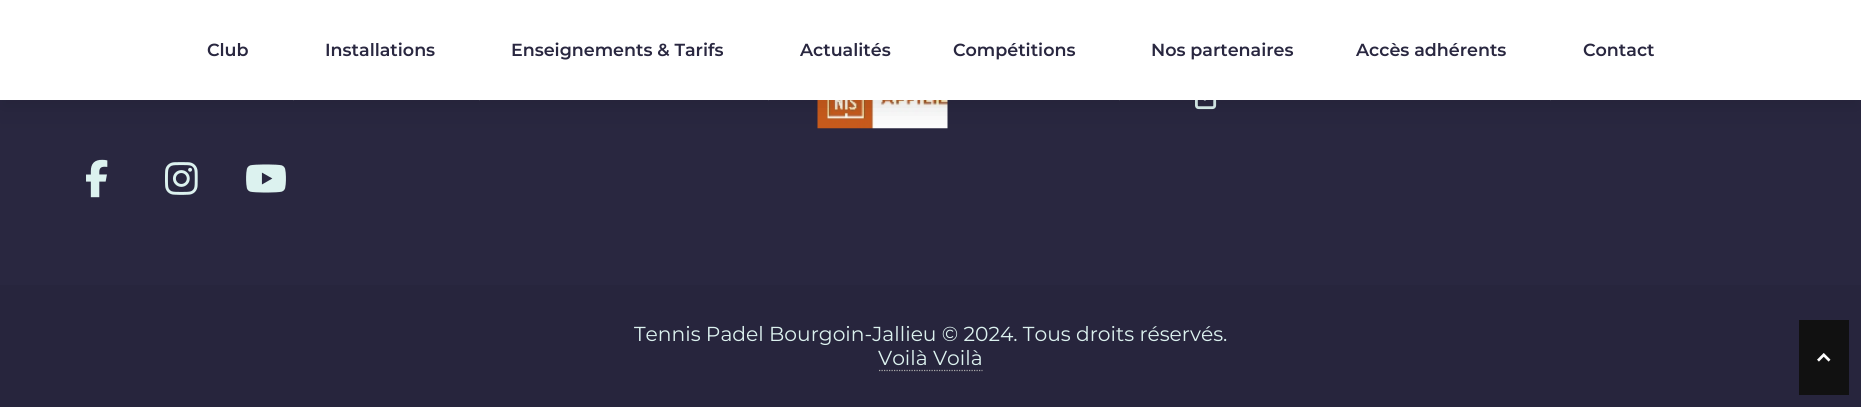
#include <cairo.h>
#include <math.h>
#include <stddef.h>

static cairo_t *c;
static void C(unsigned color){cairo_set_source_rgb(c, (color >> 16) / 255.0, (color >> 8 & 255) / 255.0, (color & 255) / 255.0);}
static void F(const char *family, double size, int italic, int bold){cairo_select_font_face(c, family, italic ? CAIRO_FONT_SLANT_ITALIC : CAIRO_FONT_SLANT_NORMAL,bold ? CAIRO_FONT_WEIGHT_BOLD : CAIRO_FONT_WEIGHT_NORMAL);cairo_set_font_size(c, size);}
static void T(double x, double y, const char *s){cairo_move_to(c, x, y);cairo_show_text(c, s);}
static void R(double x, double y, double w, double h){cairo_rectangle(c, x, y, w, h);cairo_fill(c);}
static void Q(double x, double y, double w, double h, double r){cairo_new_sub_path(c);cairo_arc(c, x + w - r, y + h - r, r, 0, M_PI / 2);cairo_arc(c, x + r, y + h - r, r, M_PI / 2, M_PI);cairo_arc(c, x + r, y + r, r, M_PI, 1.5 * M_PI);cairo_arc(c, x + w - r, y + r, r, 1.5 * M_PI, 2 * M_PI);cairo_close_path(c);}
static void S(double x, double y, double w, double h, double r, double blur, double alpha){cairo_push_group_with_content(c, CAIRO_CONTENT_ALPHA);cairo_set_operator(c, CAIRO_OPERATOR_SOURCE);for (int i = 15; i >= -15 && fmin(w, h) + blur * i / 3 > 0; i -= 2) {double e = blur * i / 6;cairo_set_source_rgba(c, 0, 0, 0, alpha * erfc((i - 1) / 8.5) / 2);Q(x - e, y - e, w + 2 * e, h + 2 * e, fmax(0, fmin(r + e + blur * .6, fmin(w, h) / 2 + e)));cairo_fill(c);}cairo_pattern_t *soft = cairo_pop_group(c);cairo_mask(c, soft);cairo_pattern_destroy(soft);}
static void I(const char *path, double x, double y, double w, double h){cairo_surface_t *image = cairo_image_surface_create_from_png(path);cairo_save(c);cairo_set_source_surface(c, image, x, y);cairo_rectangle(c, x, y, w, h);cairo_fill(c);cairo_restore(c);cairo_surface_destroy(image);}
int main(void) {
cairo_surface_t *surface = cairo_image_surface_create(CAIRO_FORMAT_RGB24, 1861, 407);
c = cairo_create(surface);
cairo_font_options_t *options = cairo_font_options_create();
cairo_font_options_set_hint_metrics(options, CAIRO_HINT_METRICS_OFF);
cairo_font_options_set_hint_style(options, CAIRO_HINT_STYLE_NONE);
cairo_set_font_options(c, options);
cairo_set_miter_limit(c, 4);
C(0x292740);
cairo_paint(c);
I("1.png",817,100,131,29);
I("2.png",1195,100,22,10);
C(0x000000);
S(0,10,1861,100,0,12.5,.1);
C(0xffffff);
R(0,0,1861,100);
F("Montserrat SemiBold",17.5,0,0);
C(0x292740);
T(207,56,"Club");
cairo_set_source_rgba(c,1,1,1,0.07);
R(293,100,1,1);
C(0x292740);
T(325,56,"Installations");
cairo_set_source_rgba(c,1,1,1,0.07);
R(479,100,1,1);
C(0x292740);
T(511,56,"Enseignements & Tarifs");
cairo_set_source_rgba(c,1,1,1,0.07);
R(768,100,1,1);
C(0x292740);
T(800,56,"Actualités");
T(953,56,"Compétitions");
cairo_set_source_rgba(c,1,1,1,0.07);
R(1119,100,1,1);
C(0x292740);
T(1151,56,"Nos partenaires");
T(1356,56,"Accès adhérents");
cairo_set_source_rgba(c,1,1,1,0.07);
R(1550,100,1,1);
C(0x292740);
T(1583,56,"Contact");
I("3.png",86,159,22,39);
I("4.png",165,162,33,33);
I("5.png",246,164,40,29);
C(0x27253d);
R(0,285,1861,122);
F("Montserrat",20.25,0,0);
C(0xdcf2ef);
T(634,341,"Tennis Padel Bourgoin-Jallieu © 2024. Tous droits réservés.");
T(878,365,"Voilà Voilà");
cairo_new_path(c);
cairo_move_to(c,879,370.5);
cairo_line_to(c,982.5,370.5);
C(0xaaaaaa);
cairo_set_line_width(c,1.2);
cairo_set_dash(c,(double[]){1.25,1.25},2,0);
cairo_stroke(c);
C(0x111111);
R(1799,320,50,75);
I("6.png",1817,353,14,9);
cairo_surface_write_to_png(surface, "o.png");
cairo_font_options_destroy(options);
cairo_destroy(c);
cairo_surface_destroy(surface);
return 0;
}
